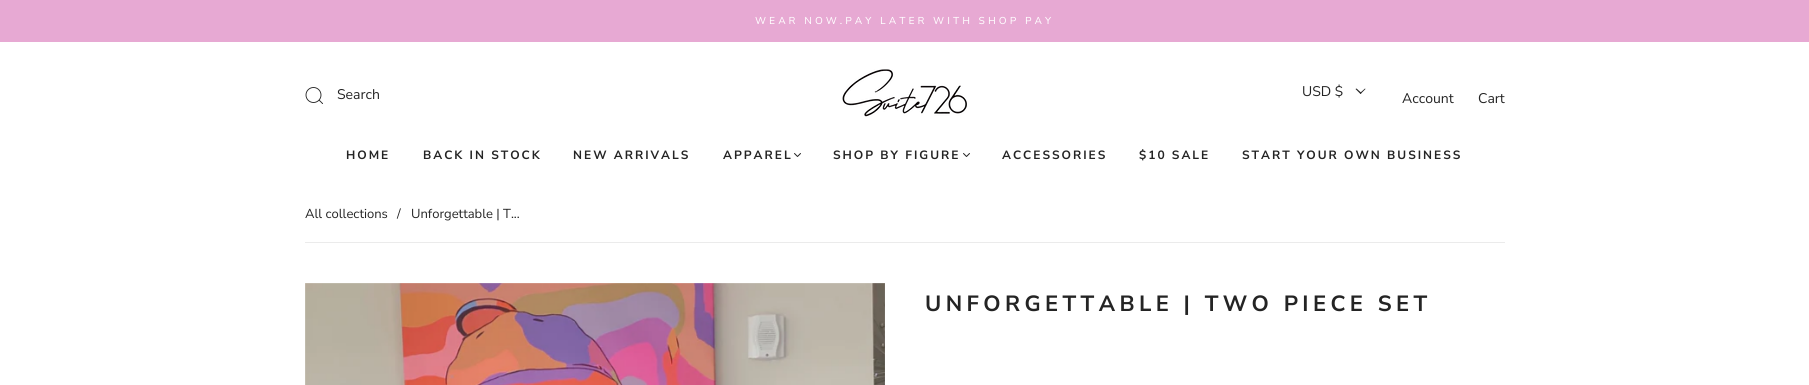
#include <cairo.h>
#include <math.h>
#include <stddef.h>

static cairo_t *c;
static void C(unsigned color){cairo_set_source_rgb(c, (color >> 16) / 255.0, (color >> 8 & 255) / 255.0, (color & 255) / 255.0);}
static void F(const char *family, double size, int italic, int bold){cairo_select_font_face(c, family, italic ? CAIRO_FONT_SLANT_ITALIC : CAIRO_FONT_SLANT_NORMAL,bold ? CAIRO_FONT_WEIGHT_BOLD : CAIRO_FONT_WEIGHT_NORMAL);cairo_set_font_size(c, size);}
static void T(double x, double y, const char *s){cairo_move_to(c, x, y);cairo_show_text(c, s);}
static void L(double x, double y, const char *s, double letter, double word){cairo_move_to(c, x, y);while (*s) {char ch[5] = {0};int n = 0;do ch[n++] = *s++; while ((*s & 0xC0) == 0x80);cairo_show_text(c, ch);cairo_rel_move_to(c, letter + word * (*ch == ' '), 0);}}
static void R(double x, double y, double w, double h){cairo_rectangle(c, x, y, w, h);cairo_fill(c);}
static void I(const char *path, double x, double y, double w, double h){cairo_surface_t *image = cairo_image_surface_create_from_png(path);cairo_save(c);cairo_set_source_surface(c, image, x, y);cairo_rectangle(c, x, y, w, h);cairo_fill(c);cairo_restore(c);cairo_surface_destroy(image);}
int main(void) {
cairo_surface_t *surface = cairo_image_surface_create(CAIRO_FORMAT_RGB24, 1809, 385);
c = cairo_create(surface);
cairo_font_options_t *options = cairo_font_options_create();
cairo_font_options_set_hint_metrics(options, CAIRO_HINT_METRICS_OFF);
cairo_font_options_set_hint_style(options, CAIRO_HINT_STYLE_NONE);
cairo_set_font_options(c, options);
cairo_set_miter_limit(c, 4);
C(0xffffff);
cairo_paint(c);
C(0xe7a9d3);
R(0,0,1809,42);
F("Nunito Sans",10,0,0);
C(0xffffff);
L(755,24,"WEAR NOW.PAY LATER WITH SHOP PAY",3,0);
cairo_new_path(c);
cairo_arc(c,313.5,95,7.5,0,2 * M_PI);
C(0x242424);
cairo_set_line_width(c,.9);
cairo_stroke(c);
cairo_save(c);
cairo_rectangle(c,305,87,18,17);
cairo_clip(c);
cairo_new_path(c);
cairo_move_to(c,319,100);
cairo_line_to(c,324.5,105.5);
cairo_stroke(c);
cairo_restore(c);
F("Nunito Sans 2",14,0,0);
T(337,99,"Search");
I("1.png",842,69,125,48);
T(1302,96,"USD $");
cairo_new_path(c);
cairo_move_to(c,1365,88.5);
cairo_line_to(c,1365.5,89);
cairo_line_to(c,1360.5,94);
cairo_line_to(c,1360,93);
cairo_close_path(c);
cairo_fill(c);
cairo_new_path(c);
cairo_move_to(c,1356.5,88.5);
cairo_line_to(c,1361.5,93);
cairo_line_to(c,1360.5,94);
cairo_line_to(c,1355.5,89);
cairo_close_path(c);
cairo_fill(c);
T(1402,103,"Account");
T(1478,103,"Cart");
F("Nunito Sans",12,0,1);
L(346,159,"HOME",2,0);
L(423,159,"BACK IN STOCK",2,0);
L(573,159,"NEW ARRIVALS",2,0);
L(723,159,"APPAREL",2,0);
I("2.png",794,153,7,4);
L(833,159,"SHOP BY FIGURE",2,0);
I("2.png",963,153,7,4);
L(1002,159,"ACCESSORIES",2,0);
L(1139,159,"$10 SALE",2,0);
L(1242,159,"START YOUR OWN BUSINESS",2,0);
C(0xebebeb);
R(305,242,1200,1);
F("Nunito Sans 2",13,0,0);
C(0x242424);
T(305,218,"All collections");
T(397,218,"/");
T(411,218,"Unforgettable | T...");
I("3.png",305,283,580,102);
F("Nunito Sans",22,0,1);
L(925,311,"UNFORGETTABLE | TWO PIECE SET",4.4,0);
cairo_surface_write_to_png(surface, "o.png");
cairo_font_options_destroy(options);
cairo_destroy(c);
cairo_surface_destroy(surface);
return 0;
}
